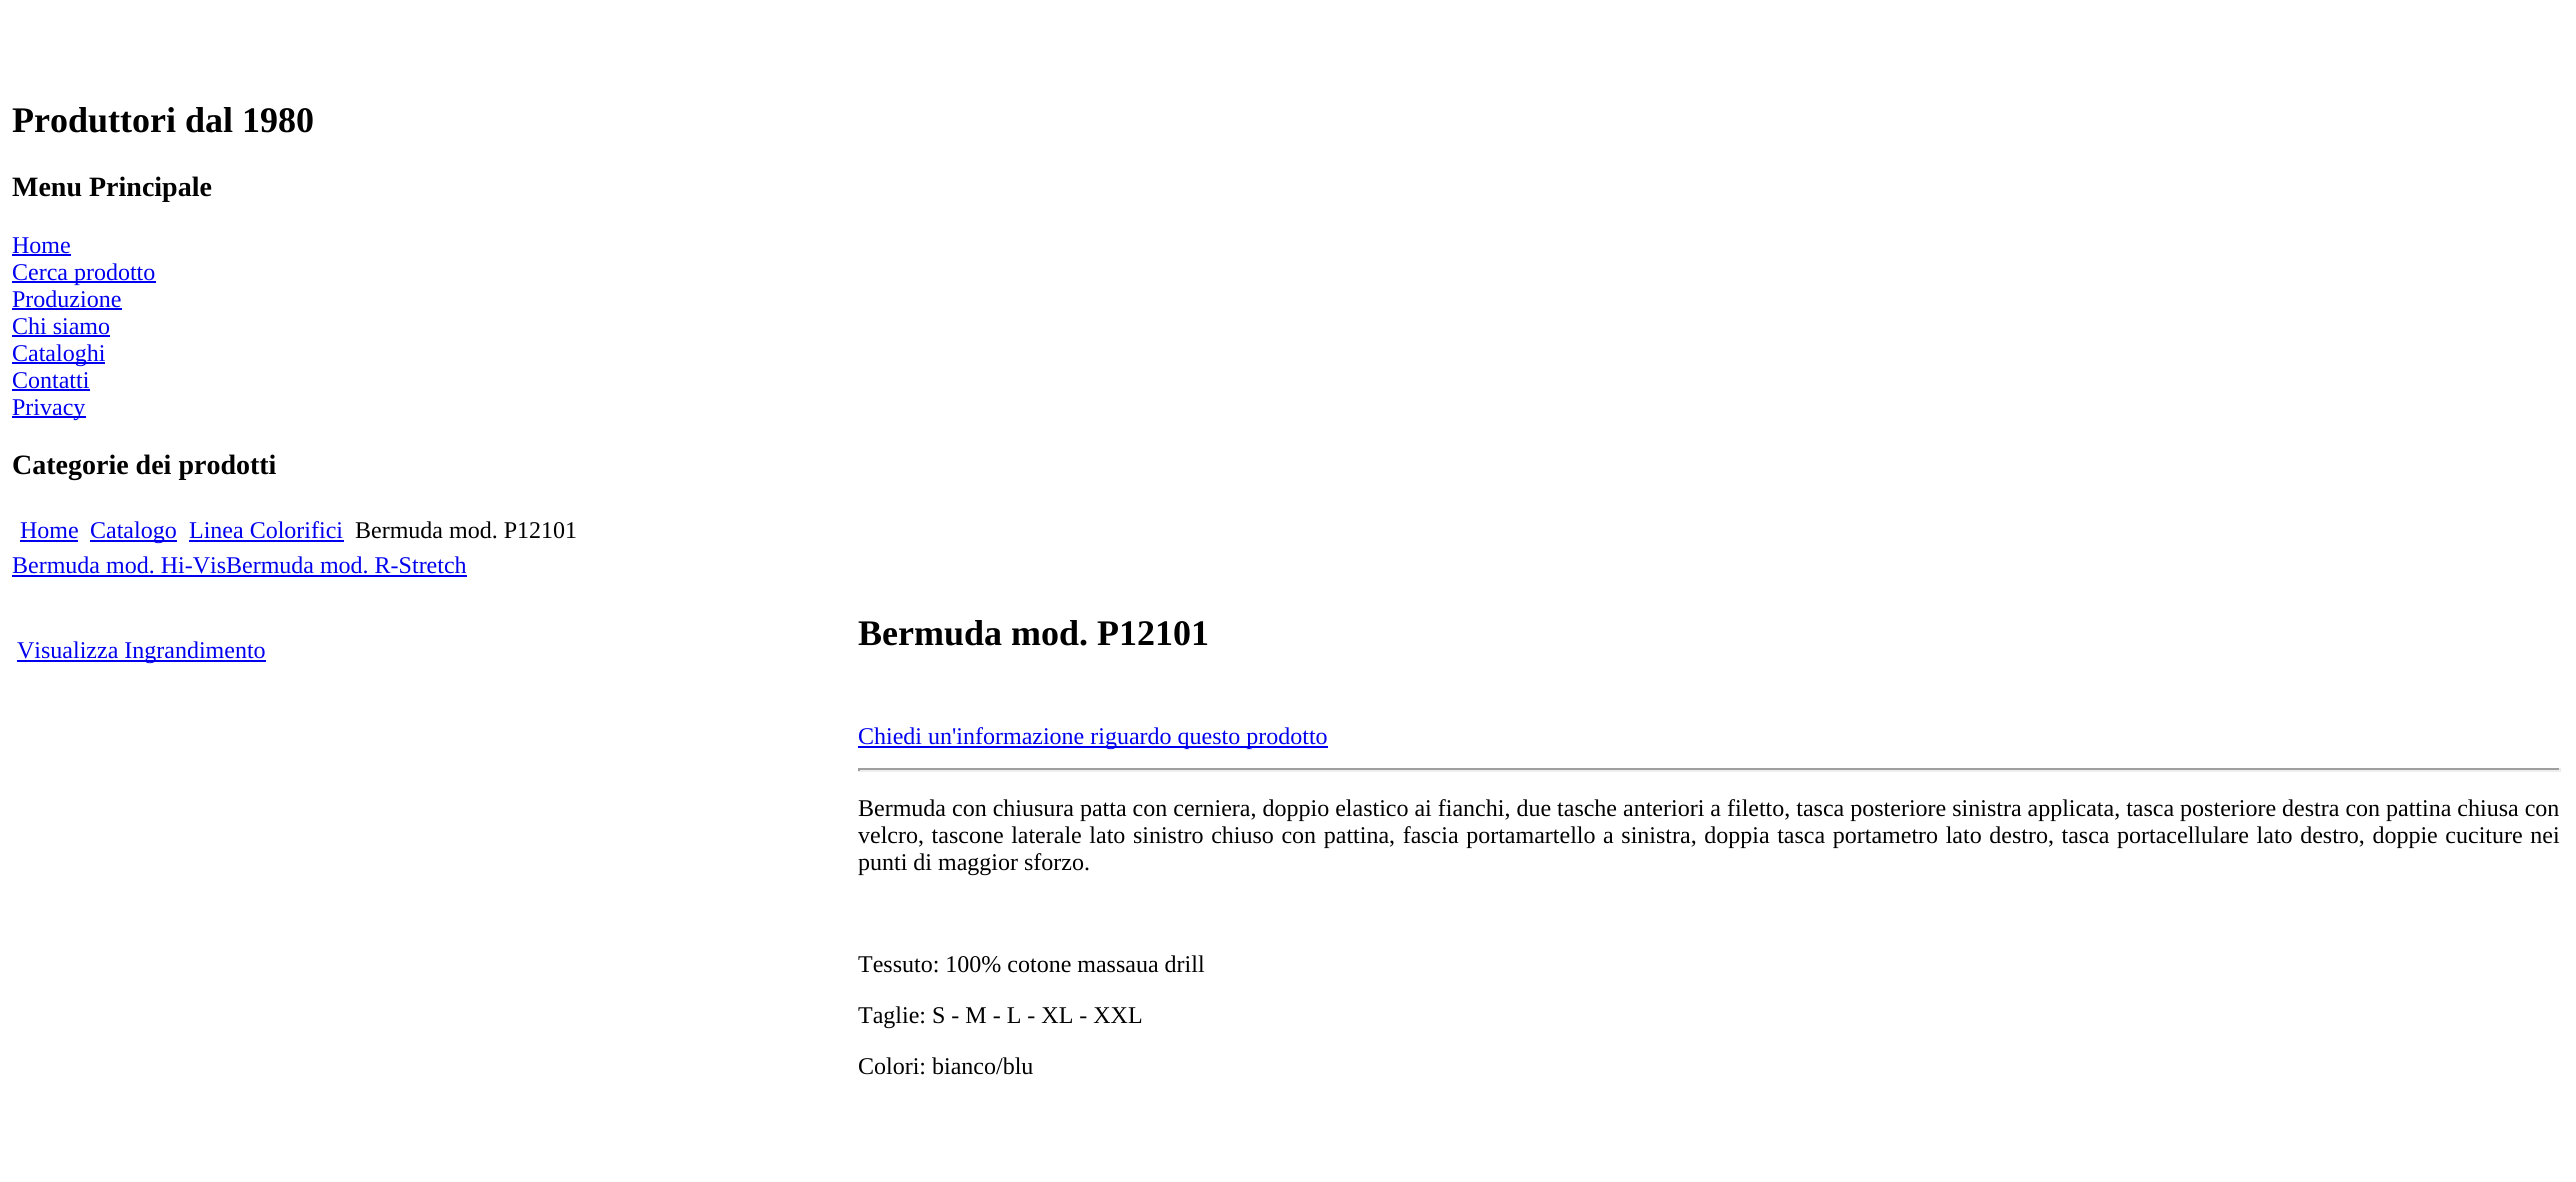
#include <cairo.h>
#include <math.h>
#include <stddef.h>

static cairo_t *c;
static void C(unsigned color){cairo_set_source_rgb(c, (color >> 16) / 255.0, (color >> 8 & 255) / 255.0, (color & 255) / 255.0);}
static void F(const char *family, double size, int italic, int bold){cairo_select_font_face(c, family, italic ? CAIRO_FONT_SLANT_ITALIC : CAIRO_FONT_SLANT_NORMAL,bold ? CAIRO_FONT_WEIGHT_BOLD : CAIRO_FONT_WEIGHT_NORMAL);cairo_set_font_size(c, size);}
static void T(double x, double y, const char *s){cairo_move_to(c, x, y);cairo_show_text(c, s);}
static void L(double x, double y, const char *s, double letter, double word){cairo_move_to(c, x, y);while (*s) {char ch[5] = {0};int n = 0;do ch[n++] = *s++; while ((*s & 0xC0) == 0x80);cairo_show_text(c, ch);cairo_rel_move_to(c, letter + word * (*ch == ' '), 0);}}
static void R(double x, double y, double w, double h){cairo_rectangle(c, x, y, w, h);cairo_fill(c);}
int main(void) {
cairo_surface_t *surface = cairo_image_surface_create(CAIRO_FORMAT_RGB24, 2576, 1182);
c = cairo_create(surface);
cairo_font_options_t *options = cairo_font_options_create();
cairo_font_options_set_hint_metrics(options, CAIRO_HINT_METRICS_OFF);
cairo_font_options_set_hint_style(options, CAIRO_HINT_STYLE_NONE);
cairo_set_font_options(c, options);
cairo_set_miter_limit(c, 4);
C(0xffffff);
cairo_paint(c);
F("Liberation Serif",36,0,1);
C(0x000000);
T(12,132,"Produttori dal 1980");
F("Liberation Serif",28,0,1);
T(12,196,"Menu Principale");
F("Liberation Serif",24,0,0);
C(0x0000ee);
T(12,253,"Home");
R(12,254,59,2);
R(12,281,144,2);
T(12,280,"Cerca prodotto");
T(12,307,"Produzione");
R(12,308,110,2);
T(12,334,"Chi siamo");
R(12,335,98,2);
R(12,362,93,2);
T(12,361,"Cataloghi");
T(12,388,"Contatti");
R(12,389,78,2);
R(12,416,74,2);
T(12,415,"Privacy");
F("Liberation Serif",28,0,1);
C(0x000000);
T(12,474,"Categorie dei prodotti");
F("Liberation Serif",24,0,0);
C(0x0000ee);
T(20,538,"Home");
R(20,540,58,2);
R(90,540,87,2);
T(90,538,"Catalogo");
T(189,538,"Linea Colorifici");
R(189,540,155,2);
C(0x000000);
T(355,538,"Bermuda mod. P12101");
C(0x0000ee);
T(12,573,"Bermuda mod. Hi-VisBermuda mod. R-Stretch");
R(12,575,455,2);
F("Liberation Serif",36,0,1);
C(0x000000);
T(858,645,"Bermuda mod. P12101");
C(0x0000ee);
R(17,660,249,2);
F("Liberation Serif",24,0,0);
T(17,658,"Visualizza Ingrandimento");
R(858,746,470,2);
T(858,744,"Chiedi un'informazione riguardo questo prodotto");
C(0x9f9f9f);
R(858,768,1703,2);
C(0xeeeeee);
R(2559,768,2,3);
R(858,770,1703,2);
C(0x9f9f9f);
R(858,768,2,3);
C(0x000000);
T(858,816,"Bermuda con chiusura patta con cerniera, doppio elastico ai fianchi, due tasche anteriori a filetto, tasca posteriore sinistra applicata, tasca posteriore destra con pattina chiusa con");
L(858,843,"velcro, tascone laterale lato sinistro chiuso con pattina, fascia portamartello a sinistra, doppia tasca portametro lato destro, tasca portacellulare lato destro, doppie cuciture nei",0,1.6);
T(858,870,"punti di maggior sforzo.");
T(858,972,"Tessuto: 100% cotone massaua drill");
T(858,1023,"Taglie: S - M - L - XL - XXL");
T(858,1074,"Colori: bianco/blu");
cairo_surface_write_to_png(surface, "o.png");
cairo_font_options_destroy(options);
cairo_destroy(c);
cairo_surface_destroy(surface);
return 0;
}
